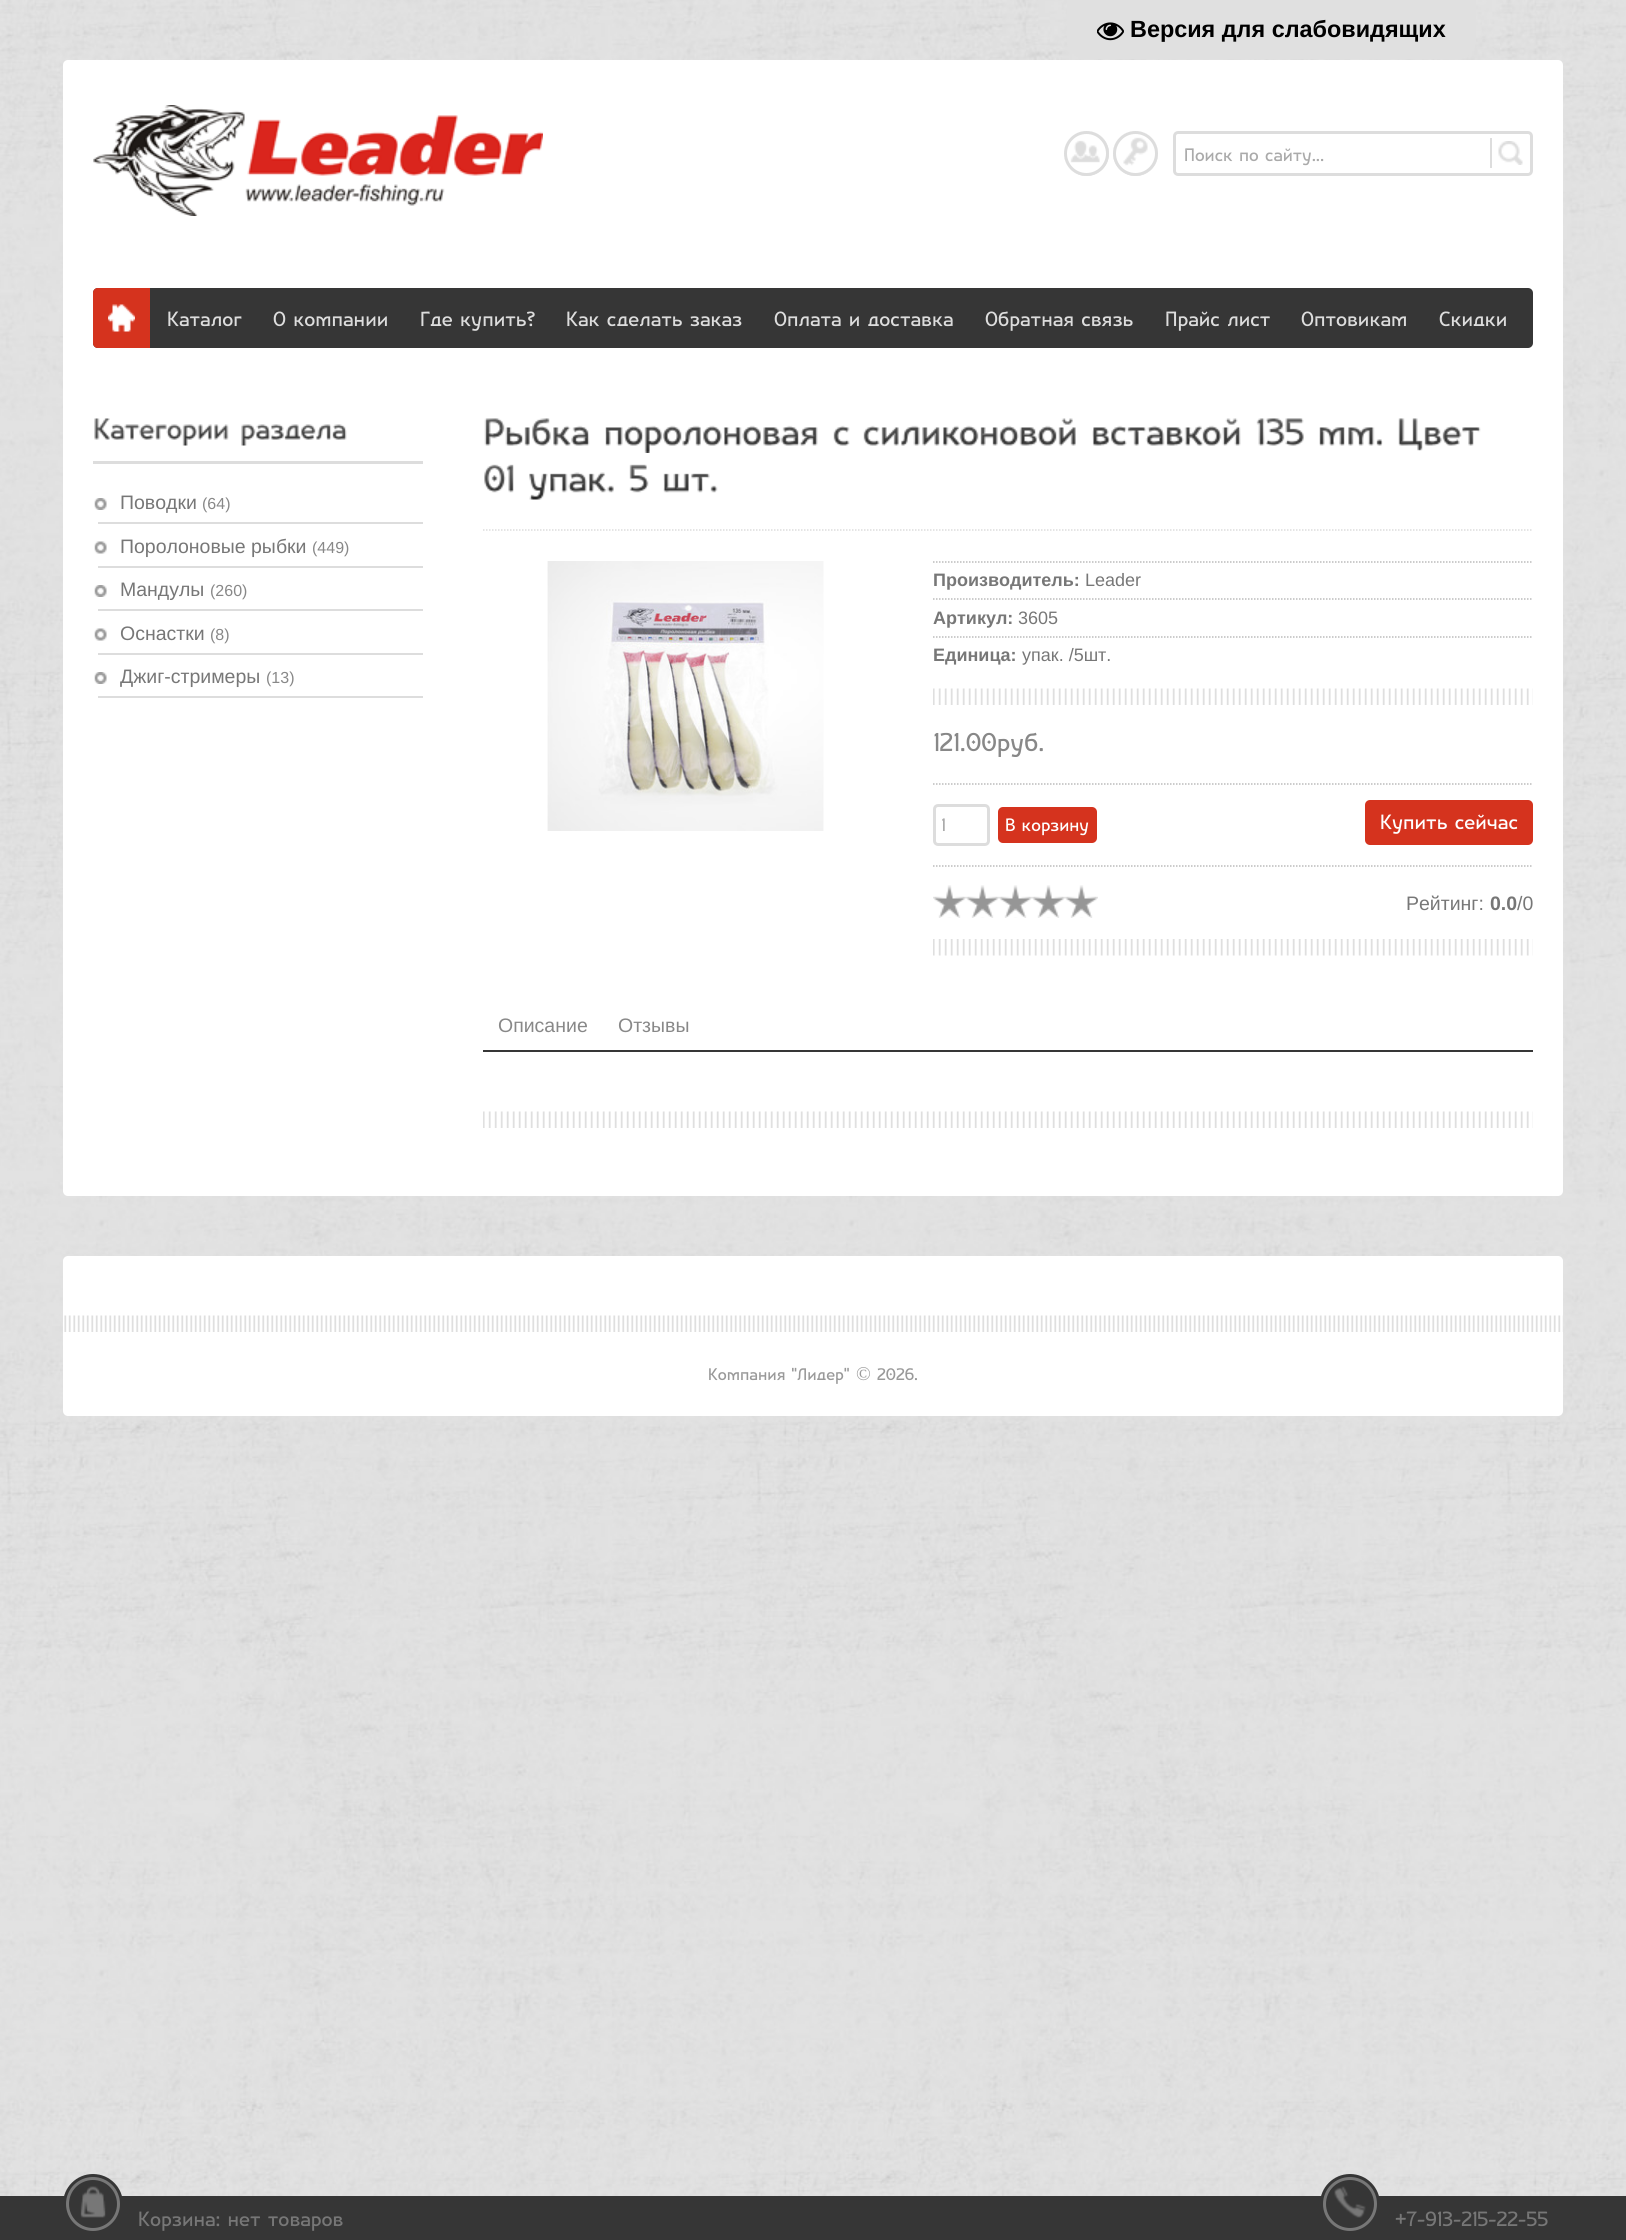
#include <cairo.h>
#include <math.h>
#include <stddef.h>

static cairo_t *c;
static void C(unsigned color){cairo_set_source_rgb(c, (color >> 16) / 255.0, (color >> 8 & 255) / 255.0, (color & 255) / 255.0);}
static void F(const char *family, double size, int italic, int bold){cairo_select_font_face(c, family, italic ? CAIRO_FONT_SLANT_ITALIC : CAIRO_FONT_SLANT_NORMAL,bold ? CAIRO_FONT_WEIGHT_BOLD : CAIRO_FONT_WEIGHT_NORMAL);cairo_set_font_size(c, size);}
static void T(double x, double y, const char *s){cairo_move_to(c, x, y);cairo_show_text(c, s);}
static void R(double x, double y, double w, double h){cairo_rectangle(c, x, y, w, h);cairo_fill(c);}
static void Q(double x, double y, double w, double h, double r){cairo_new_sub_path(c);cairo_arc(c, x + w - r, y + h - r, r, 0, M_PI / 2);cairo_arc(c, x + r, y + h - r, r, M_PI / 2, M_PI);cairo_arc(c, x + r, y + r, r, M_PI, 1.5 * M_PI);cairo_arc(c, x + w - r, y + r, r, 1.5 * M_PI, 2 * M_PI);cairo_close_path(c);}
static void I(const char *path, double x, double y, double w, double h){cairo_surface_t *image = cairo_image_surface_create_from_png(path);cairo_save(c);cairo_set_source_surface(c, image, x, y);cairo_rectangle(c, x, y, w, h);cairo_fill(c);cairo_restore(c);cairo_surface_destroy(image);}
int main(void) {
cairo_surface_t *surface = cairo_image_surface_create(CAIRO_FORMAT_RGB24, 1626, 2240);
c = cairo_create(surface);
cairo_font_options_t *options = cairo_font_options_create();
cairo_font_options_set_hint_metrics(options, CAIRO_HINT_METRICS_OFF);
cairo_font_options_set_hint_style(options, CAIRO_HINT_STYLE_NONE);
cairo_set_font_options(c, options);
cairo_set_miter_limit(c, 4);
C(0xffffff);
cairo_paint(c);
I("1.png",0,0,1626,2196);
C(0xe0e0e0);
cairo_new_path(c);
cairo_move_to(c,1067,0);
cairo_line_to(c,1476,0);
cairo_line_to(c,1476,41);
cairo_curve_to(c,1476,51,1468,59,1458,59);
cairo_line_to(c,1085,59);
cairo_curve_to(c,1075,59,1067,51,1067,41);
cairo_close_path(c);
cairo_fill(c);
I("2.png",1097,22,27,19);
F("Liberation Sans",23.4,0,1);
C(0x000000);
T(1130,37,"Версия для слабовидящих");
C(0xffffff);
Q(63,60,1500,1136,5);
cairo_fill(c);
I("3.png",93,105,450,111);
C(0xdddddd);
cairo_arc(c,1086.5,153.5,22.5,0,2 * M_PI);
cairo_fill(c);
I("4.png",1064,131,45,45);
cairo_arc(c,1086.5,153.5,21,0,2 * M_PI);
cairo_set_line_width(c,3);
cairo_stroke(c);
cairo_arc(c,1135.5,153.5,22.5,0,2 * M_PI);
cairo_fill(c);
I("5.png",1113,131,45,45);
cairo_arc(c,1135.5,153.5,21,0,2 * M_PI);
cairo_stroke(c);
Q(1174.5,132.5,357,42,3.5);
cairo_stroke(c);
F("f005 Medium",21,0,0);
C(0xaaaaaa);
T(1184,161,"Поиск по сайту...");
C(0xdddddd);
R(1490,138,2,30);
I("6.png",1498,141,25,24);
C(0x363636);
Q(93,288,1440,60,5);
cairo_fill(c);
C(0xd5331e);
cairo_new_path(c);
cairo_move_to(c,98,288);
cairo_line_to(c,150,288);
cairo_line_to(c,150,348);
cairo_line_to(c,98,348);
cairo_curve_to(c,95,348,93,346,93,343);
cairo_line_to(c,93,293);
cairo_curve_to(c,93,290,95,288,98,288);
cairo_close_path(c);
cairo_fill(c);
I("7.png",108,304,27,28);
F("f005 Medium",24,0,0);
C(0xdddddd);
T(167,326,"Каталог");
T(273,326,"О компании");
T(420,326,"Где купить?");
T(566,326,"Как сделать заказ");
T(774,326,"Оплата и доставка");
T(985,326,"Обратная связь");
T(1165,326,"Прайс лист");
T(1301,326,"Оптовикам");
T(1439,326,"Скидки");
R(93,461,330,3);
I("8.png",94,418,135,28);
I("9.png",241,424,106,22);
I("10.png",94,498,13,12);
R(98,522,325,2);
F("Liberation Sans",19.5,0,0);
C(0x777777);
T(120,509,"Поводки");
F("Liberation Sans",16,0,0);
C(0x888888);
T(202,509,"(64)");
I("11.png",94,541,13,13);
C(0xdddddd);
R(98,566,325,2);
F("Liberation Sans",19.5,0,0);
C(0x777777);
T(120,553,"Поролоновые рыбки");
F("Liberation Sans",16,0,0);
C(0x888888);
T(312,553,"(449)");
I("10.png",94,585,13,12);
C(0xdddddd);
R(98,609,325,2);
F("Liberation Sans",19.5,0,0);
C(0x777777);
T(120,596,"Мандулы");
F("Liberation Sans",16,0,0);
C(0x888888);
T(210,596,"(260)");
I("11.png",94,628,13,13);
C(0xdddddd);
R(98,653,325,2);
F("Liberation Sans",19.5,0,0);
C(0x777777);
T(120,640,"Оснастки");
F("Liberation Sans",16,0,0);
C(0x888888);
T(210,640,"(8)");
I("10.png",94,672,13,12);
C(0xdddddd);
R(98,696,325,2);
F("Liberation Sans",19.5,0,0);
C(0x777777);
T(120,683,"Джиг-стримеры");
F("Liberation Sans",16,0,0);
C(0x888888);
T(266,683,"(13)");
cairo_new_path(c);
cairo_move_to(c,483,530);
cairo_line_to(c,1533,530);
C(0xdddddd);
cairo_set_line_width(c,1.5);
cairo_set_dash(c,(double[]){1.5,1.5},2,0);
cairo_stroke(c);
I("12.png",484,418,106,28);
I("13.png",605,425,213,28);
I("14.png",833,425,17,21);
I("15.png",863,418,213,28);
I("16.png",1092,418,149,28);
I("17.png",1256,418,48,28);
I("18.png",1319,427,64,19);
I("19.png",1398,418,83,33);
I("20.png",484,464,30,29);
I("21.png",529,472,85,28);
I("22.png",629,464,20,29);
I("23.png",663,473,55,20);
I("24.png",547,561,277,270);
cairo_new_path(c);
cairo_move_to(c,933,562);
cairo_line_to(c,1533,562);
C(0xbbbbbb);
cairo_stroke(c);
F("Liberation Sans",18,0,1);
C(0x777777);
T(933,586,"Производитель:");
F("Liberation Sans",18,0,0);
T(1085,586,"Leader");
cairo_new_path(c);
cairo_move_to(c,933,599);
cairo_line_to(c,1533,599);
C(0xbbbbbb);
cairo_stroke(c);
F("Liberation Sans",18,0,1);
C(0x777777);
T(933,624,"Артикул:");
F("Liberation Sans",18,0,0);
T(1018,624,"3605");
cairo_new_path(c);
cairo_move_to(c,933,637);
cairo_line_to(c,1533,637);
C(0xbbbbbb);
cairo_stroke(c);
F("Liberation Sans",18,0,1);
C(0x777777);
T(933,661,"Единица:");
F("Liberation Sans",18,0,0);
T(1022,661,"упак. /5шт.");
I("25.png",933,688,600,17);
F("f005 Medium",30,0,0);
C(0x888888);
T(933,751,"121.00руб.");
cairo_new_path(c);
cairo_move_to(c,933,784);
cairo_line_to(c,1533,784);
C(0xbbbbbb);
cairo_stroke(c);
cairo_new_path(c);
cairo_move_to(c,933,866);
cairo_line_to(c,1533,866);
cairo_stroke(c);
Q(934.5,805.5,54,39,3.5);
C(0xdddddd);
cairo_set_line_width(c,3);
cairo_set_dash(c,NULL,0,0);
cairo_stroke(c);
F("f005 Medium",21,0,0);
C(0xaaaaaa);
T(941,831,"1");
C(0xd5331e);
Q(998,807,99,36,5);
cairo_fill(c);
C(0xffffff);
T(1005,831,"В корзину");
C(0xd5331e);
Q(1365,800,168,45,5);
cairo_fill(c);
F("f005 Medium",24,0,0);
C(0xffffff);
T(1380,829,"Купить сейчас");
I("26.png",933,885,165,33);
F("Liberation Sans",19.5,0,0);
C(0x777777);
T(1406,910,"Рейтинг:");
F("Liberation Sans",19.5,0,1);
T(1490,910,"0.0");
F("Liberation Sans",19.5,0,0);
T(1517,910,"/0");
I("27.png",933,939,600,17);
C(0x363636);
R(483,1050,1050,2);
C(0x888888);
T(498,1032,"Описание");
T(618,1032,"Отзывы");
I("28.png",483,1111,1050,17);
C(0xffffff);
Q(63,1256,1500,160,5);
cairo_fill(c);
I("29.png",64,1315,1499,17);
F("f005 Medium",19.5,0,0);
C(0x999999);
T(708,1380,"Компания \"Лидер\"");
F("Liberation Serif",19.5,0,0);
T(856,1380,"©");
F("f005 Medium",19.5,0,0);
T(877,1380,"2026.");
C(0x363636);
R(0,2196,1626,44);
cairo_new_path(c);
cairo_arc(c,93,2204,30,0,2 * M_PI);
cairo_fill(c);
I("30.png",80,2186,26,32);
cairo_arc(c,93,2204,25.5,0,2 * M_PI);
C(0x777777);
cairo_stroke(c);
F("f005 Medium",24,0,0);
T(138,2226,"Корзина: нет товаров");
C(0x363636);
cairo_new_path(c);
cairo_arc(c,1350,2204,30,0,2 * M_PI);
cairo_fill(c);
I("31.png",1334,2186,32,32);
cairo_arc(c,1350,2204,25.5,0,2 * M_PI);
C(0x777777);
cairo_stroke(c);
T(1395,2226,"+7-913-215-22-55");
cairo_surface_write_to_png(surface, "o.png");
cairo_font_options_destroy(options);
cairo_destroy(c);
cairo_surface_destroy(surface);
return 0;
}
